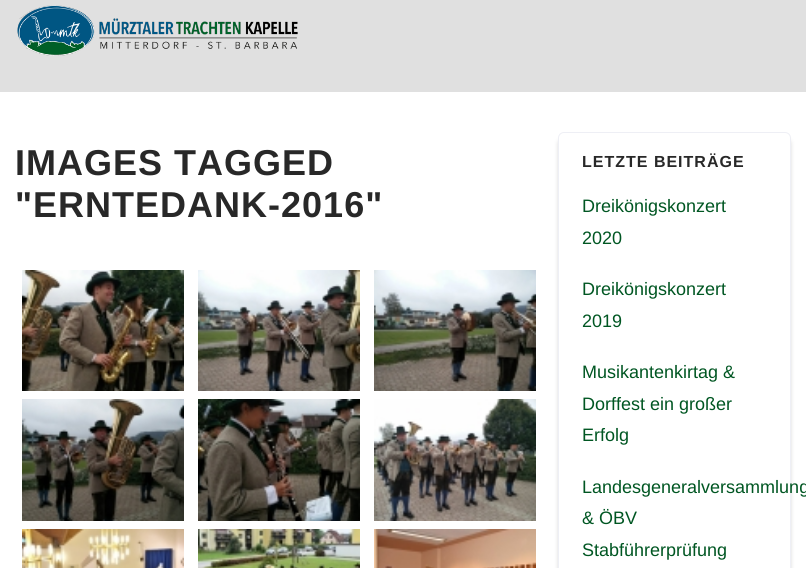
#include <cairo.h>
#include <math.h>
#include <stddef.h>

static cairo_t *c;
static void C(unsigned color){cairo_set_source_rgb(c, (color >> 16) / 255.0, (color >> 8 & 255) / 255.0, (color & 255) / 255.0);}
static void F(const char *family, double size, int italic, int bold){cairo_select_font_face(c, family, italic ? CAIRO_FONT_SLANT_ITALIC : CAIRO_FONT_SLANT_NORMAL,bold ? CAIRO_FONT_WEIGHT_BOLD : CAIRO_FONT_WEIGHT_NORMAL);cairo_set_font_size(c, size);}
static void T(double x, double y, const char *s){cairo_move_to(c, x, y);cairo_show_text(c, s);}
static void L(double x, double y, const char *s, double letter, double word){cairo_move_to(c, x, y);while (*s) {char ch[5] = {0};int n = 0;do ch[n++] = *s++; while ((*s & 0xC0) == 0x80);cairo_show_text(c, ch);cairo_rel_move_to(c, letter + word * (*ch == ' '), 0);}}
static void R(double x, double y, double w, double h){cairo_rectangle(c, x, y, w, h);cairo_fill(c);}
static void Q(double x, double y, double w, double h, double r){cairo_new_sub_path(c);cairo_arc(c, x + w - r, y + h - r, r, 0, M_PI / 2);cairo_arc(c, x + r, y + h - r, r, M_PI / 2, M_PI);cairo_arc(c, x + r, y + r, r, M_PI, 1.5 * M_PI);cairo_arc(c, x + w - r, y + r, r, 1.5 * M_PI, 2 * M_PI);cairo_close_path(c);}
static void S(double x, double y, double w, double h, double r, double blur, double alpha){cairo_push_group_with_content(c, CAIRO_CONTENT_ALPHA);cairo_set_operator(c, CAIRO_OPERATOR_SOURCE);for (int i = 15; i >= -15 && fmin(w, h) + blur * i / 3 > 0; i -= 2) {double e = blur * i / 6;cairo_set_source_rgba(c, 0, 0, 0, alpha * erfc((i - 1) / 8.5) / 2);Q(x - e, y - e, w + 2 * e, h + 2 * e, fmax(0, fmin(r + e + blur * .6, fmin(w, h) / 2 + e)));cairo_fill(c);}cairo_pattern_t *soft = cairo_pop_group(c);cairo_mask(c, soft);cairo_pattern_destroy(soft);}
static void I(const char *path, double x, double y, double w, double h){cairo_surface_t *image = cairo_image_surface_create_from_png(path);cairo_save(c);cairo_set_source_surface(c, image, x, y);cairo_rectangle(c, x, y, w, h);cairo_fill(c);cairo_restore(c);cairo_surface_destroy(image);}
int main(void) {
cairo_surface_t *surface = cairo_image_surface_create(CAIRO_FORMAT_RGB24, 806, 568);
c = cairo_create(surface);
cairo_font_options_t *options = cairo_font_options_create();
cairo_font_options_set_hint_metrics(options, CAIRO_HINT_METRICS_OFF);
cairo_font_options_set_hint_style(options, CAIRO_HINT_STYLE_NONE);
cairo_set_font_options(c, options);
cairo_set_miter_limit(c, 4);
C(0xffffff);
cairo_paint(c);
C(0xe0e0e0);
R(0,0,806,92);
I("1.png",17,5,281,51);
F("Liberation Sans",36,0,1);
C(0x282828);
L(15,175,"IMAGES TAGGED",1,0);
L(15,217,"\"ERNTEDANK-2016\"",1,0);
I("2.png",22,270,162,121);
I("3.png",198,270,162,121);
I("4.png",374,270,162,121);
I("5.png",22,399,162,122);
I("6.png",198,399,162,122);
I("7.png",374,399,162,122);
I("8.png",22,529,162,39);
I("9.png",198,529,162,39);
I("10.png",374,529,162,39);
cairo_save(c);
cairo_set_fill_rule(c,CAIRO_FILL_RULE_EVEN_ODD);
cairo_new_path(c);
cairo_move_to(c,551,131);
cairo_line_to(c,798,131);
cairo_line_to(c,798,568);
cairo_line_to(c,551,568);
cairo_close_path(c);
cairo_move_to(c,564,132);
cairo_line_to(c,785,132);
cairo_curve_to(c,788.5,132,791,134.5,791,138);
cairo_line_to(c,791,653);
cairo_curve_to(c,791,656.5,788.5,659,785,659);
cairo_line_to(c,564,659);
cairo_curve_to(c,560.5,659,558,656.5,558,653);
cairo_line_to(c,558,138);
cairo_curve_to(c,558,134.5,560.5,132,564,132);
cairo_close_path(c);
cairo_clip(c);
C(0xdcdcdc);
S(558,138,233,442,6,2,1);
cairo_restore(c);
Q(558.5,132.5,232,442,5.5);
C(0xeeeff5);
cairo_set_line_width(c,1);
cairo_stroke(c);
F("Liberation Sans",16,0,1);
C(0x282828);
L(582,167,"LETZTE BEITRÄGE",1,0);
F("Liberation Sans",18,0,0);
C(0x005622);
T(582,212,"Dreikönigskonzert");
T(582,244,"2020");
T(582,295,"Dreikönigskonzert");
T(582,327,"2019");
T(582,378,"Musikantenkirtag &");
T(582,410,"Dorffest ein großer");
T(582,441,"Erfolg");
T(582,493,"Landesgeneralversammlung");
T(582,524,"& ÖBV");
T(582,556,"Stabführerprüfung");
cairo_surface_write_to_png(surface, "o.png");
cairo_font_options_destroy(options);
cairo_destroy(c);
cairo_surface_destroy(surface);
return 0;
}
